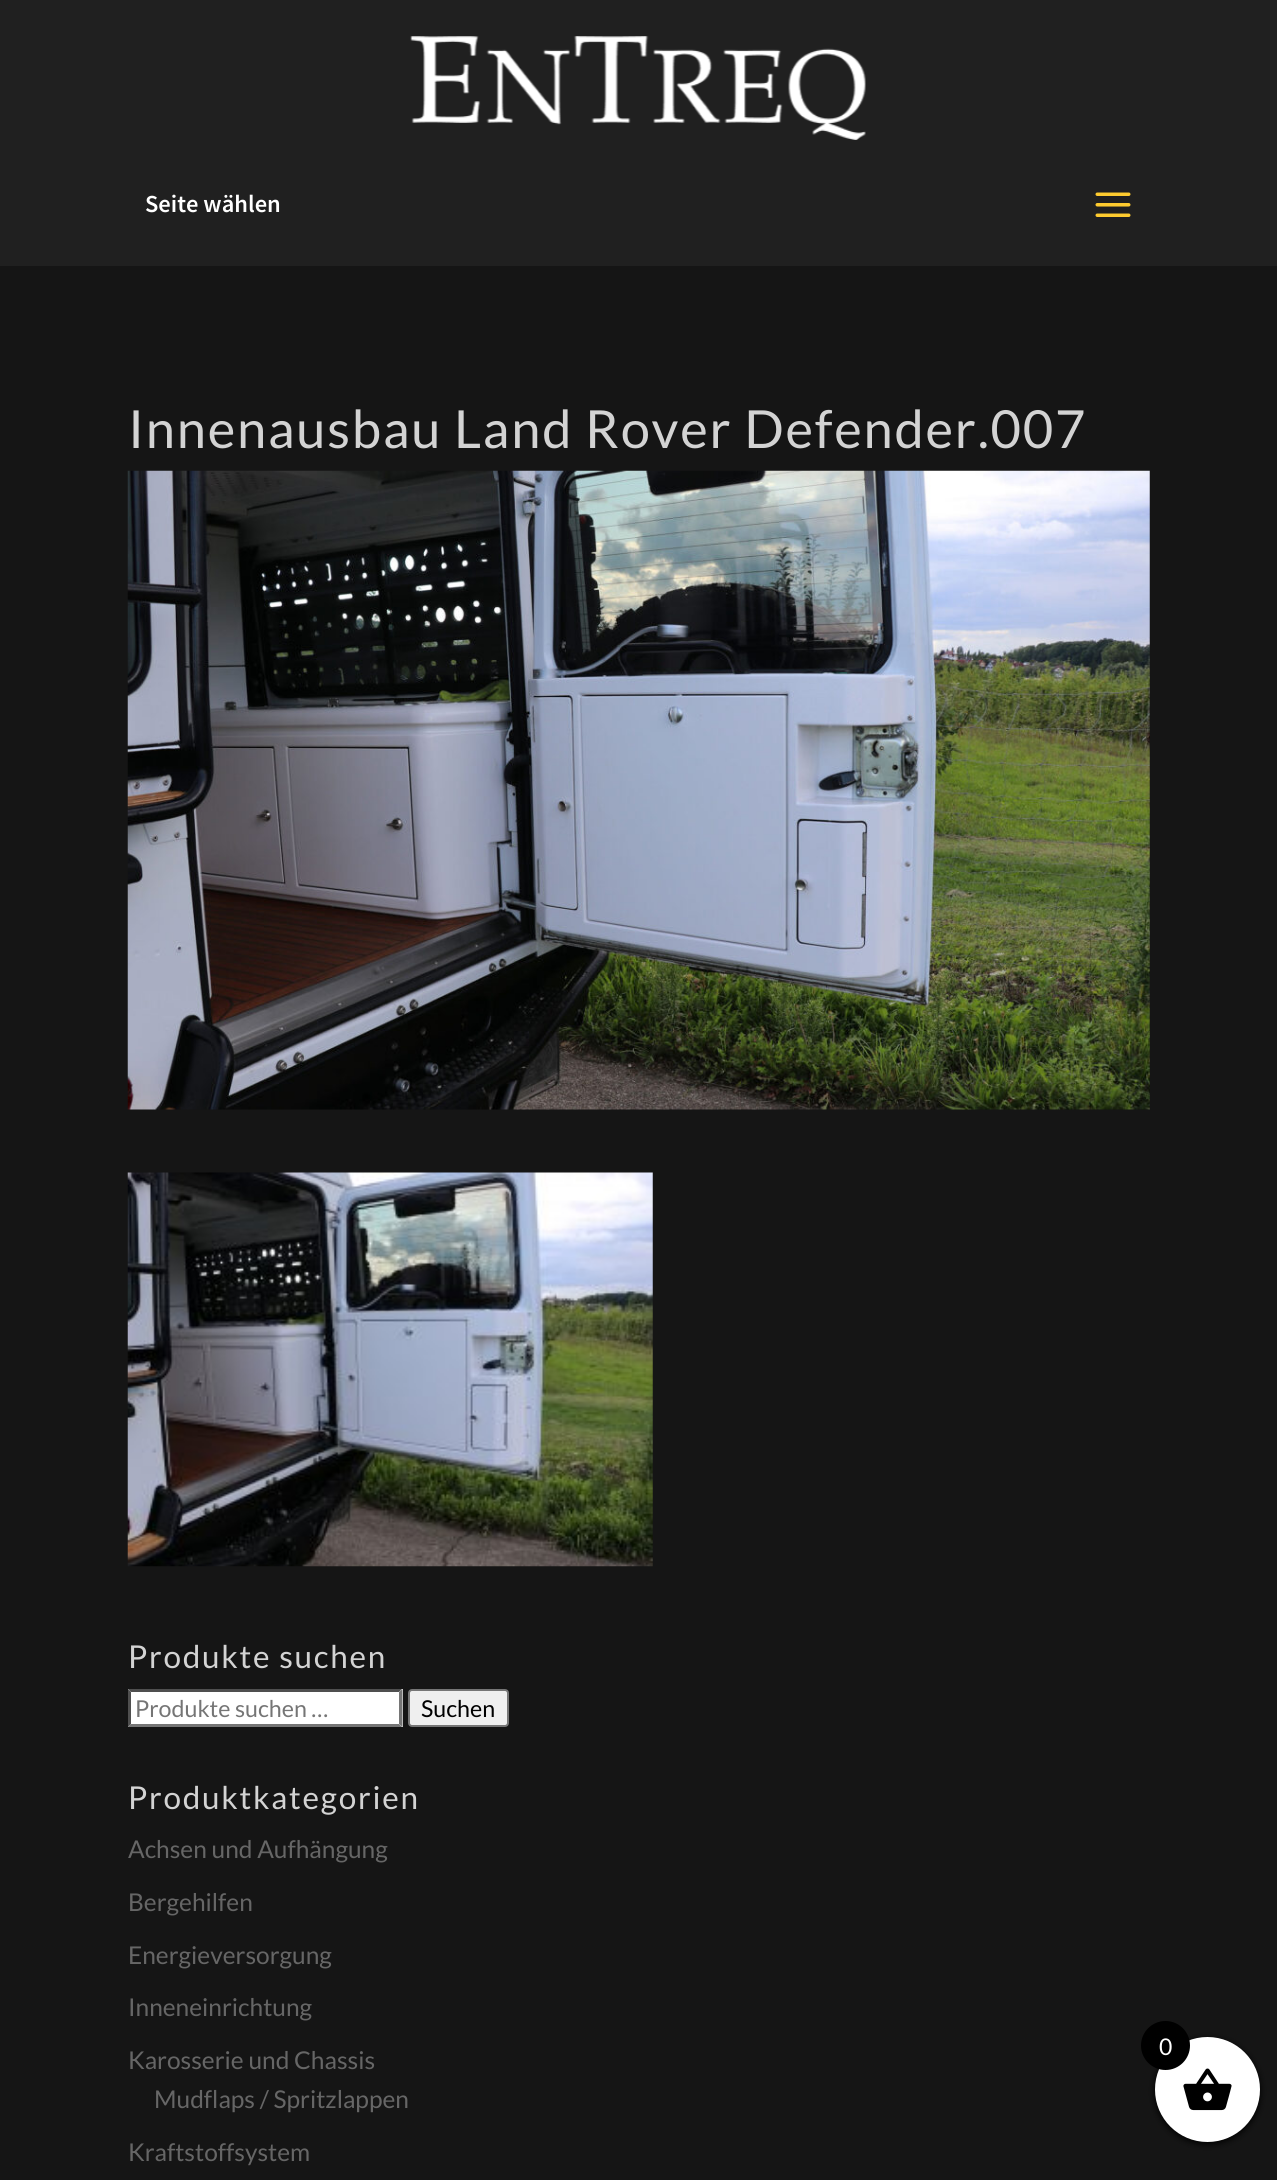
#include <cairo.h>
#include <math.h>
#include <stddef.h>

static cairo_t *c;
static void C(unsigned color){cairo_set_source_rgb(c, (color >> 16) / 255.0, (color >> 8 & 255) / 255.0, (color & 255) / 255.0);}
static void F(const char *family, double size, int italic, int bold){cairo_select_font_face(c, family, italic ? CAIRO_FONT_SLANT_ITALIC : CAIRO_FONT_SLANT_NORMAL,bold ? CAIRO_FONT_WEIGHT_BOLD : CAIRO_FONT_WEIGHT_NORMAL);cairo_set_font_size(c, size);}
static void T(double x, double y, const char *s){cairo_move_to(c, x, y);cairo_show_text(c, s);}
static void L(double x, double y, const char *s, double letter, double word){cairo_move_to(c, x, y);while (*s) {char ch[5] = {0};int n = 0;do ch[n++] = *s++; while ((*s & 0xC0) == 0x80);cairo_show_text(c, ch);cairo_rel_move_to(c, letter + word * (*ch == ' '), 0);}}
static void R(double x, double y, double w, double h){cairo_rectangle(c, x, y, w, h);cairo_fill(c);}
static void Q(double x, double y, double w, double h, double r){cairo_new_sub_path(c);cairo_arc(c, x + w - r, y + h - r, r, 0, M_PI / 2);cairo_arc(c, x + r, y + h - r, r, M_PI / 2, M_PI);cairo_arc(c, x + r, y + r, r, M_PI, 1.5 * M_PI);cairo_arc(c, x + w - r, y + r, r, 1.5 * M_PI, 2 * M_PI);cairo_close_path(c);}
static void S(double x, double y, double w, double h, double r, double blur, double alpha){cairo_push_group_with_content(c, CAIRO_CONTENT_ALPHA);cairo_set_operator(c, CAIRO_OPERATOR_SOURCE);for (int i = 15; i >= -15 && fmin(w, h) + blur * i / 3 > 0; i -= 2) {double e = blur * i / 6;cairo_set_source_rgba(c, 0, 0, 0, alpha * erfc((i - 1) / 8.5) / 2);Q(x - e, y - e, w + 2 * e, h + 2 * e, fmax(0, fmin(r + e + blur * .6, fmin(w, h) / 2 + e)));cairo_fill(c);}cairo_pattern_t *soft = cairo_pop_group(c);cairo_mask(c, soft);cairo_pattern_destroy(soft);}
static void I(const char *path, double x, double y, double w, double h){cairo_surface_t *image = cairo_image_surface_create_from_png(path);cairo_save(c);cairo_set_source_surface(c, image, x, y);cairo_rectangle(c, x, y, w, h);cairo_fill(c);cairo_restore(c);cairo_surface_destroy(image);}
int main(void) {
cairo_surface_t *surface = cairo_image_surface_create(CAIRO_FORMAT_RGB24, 1277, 2180);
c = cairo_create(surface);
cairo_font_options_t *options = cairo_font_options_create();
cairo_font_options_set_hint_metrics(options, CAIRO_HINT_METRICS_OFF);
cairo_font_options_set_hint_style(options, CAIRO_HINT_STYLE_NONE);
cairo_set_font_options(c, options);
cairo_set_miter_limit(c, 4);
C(0x151515);
cairo_paint(c);
C(0x202020);
R(0,0,1277,266);
I("1.png",410,36,456,104);
F("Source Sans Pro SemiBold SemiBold",24.5,0,0);
C(0xffffff);
T(145,212,"Seite wählen");
I("2.png",1095,192,36,25);
F("Lato",52.5,0,0);
C(0xd3d3d3);
L(128,448,"Innenausbau Land Rover Defender.007",1.75,0);
I("3.png",127,470,1023,640);
I("4.png",127,1172,526,395);
F("Lato",31.5,0,0);
L(128,1668,"Produkte suchen",1.75,0);
C(0xffffff);
R(128,1689,275,38);
C(0x4f4f4f);
cairo_new_path(c);
cairo_move_to(c,128,1689);
cairo_line_to(c,402,1689);
cairo_line_to(c,399,1692);
cairo_line_to(c,131,1692);
cairo_close_path(c);
cairo_fill(c);
C(0x767676);
cairo_new_path(c);
cairo_move_to(c,402.5,1689);
cairo_line_to(c,402.5,1727);
cairo_line_to(c,399,1724);
cairo_line_to(c,399,1692);
cairo_close_path(c);
cairo_fill(c);
cairo_new_path(c);
cairo_move_to(c,402,1727);
cairo_line_to(c,128,1727);
cairo_line_to(c,131,1724);
cairo_line_to(c,399,1724);
cairo_close_path(c);
cairo_fill(c);
C(0x4f4f4f);
cairo_new_path(c);
cairo_move_to(c,128,1727);
cairo_line_to(c,128,1689);
cairo_line_to(c,131,1692);
cairo_line_to(c,131,1724);
cairo_close_path(c);
cairo_fill(c);
F("Lato",23.25,0,0);
C(0x757575);
T(135,1717,"Produkte suchen …");
C(0xefefef);
Q(409,1690,99,36,3);
cairo_fill_preserve(c);
C(0x767676);
cairo_stroke(c);
C(0x000000);
T(421,1717,"Suchen");
F("Lato",31.5,0,0);
C(0xd3d3d3);
L(128,1809,"Produktkategorien",1.75,0);
F("Lato",24.5,0,0);
C(0x666666);
T(128,1858,"Achsen und Aufhängung");
T(128,1911,"Bergehilfen");
T(128,1964,"Energieversorgung");
T(128,2016,"Inneneinrichtung");
T(128,2069,"Karosserie und Chassis");
T(154,2108,"Mudflaps / Spritzlappen");
T(128,2161,"Kraftstoffsystem");
C(0x000000);
S(1155,2039,105,105,52.5,3.5,1);
C(0xffffff);
cairo_arc(c,1207.5,2089.5,52.5,0,2 * M_PI);
cairo_fill(c);
I("5.png",1183,2068,49,43);
C(0x000000);
cairo_arc(c,1165.5,2045.5,24.5,0,2 * M_PI);
cairo_fill(c);
F("Lato",23,0,0);
C(0xffffff);
T(1159,2055,"0");
cairo_surface_write_to_png(surface, "o.png");
cairo_font_options_destroy(options);
cairo_destroy(c);
cairo_surface_destroy(surface);
return 0;
}
